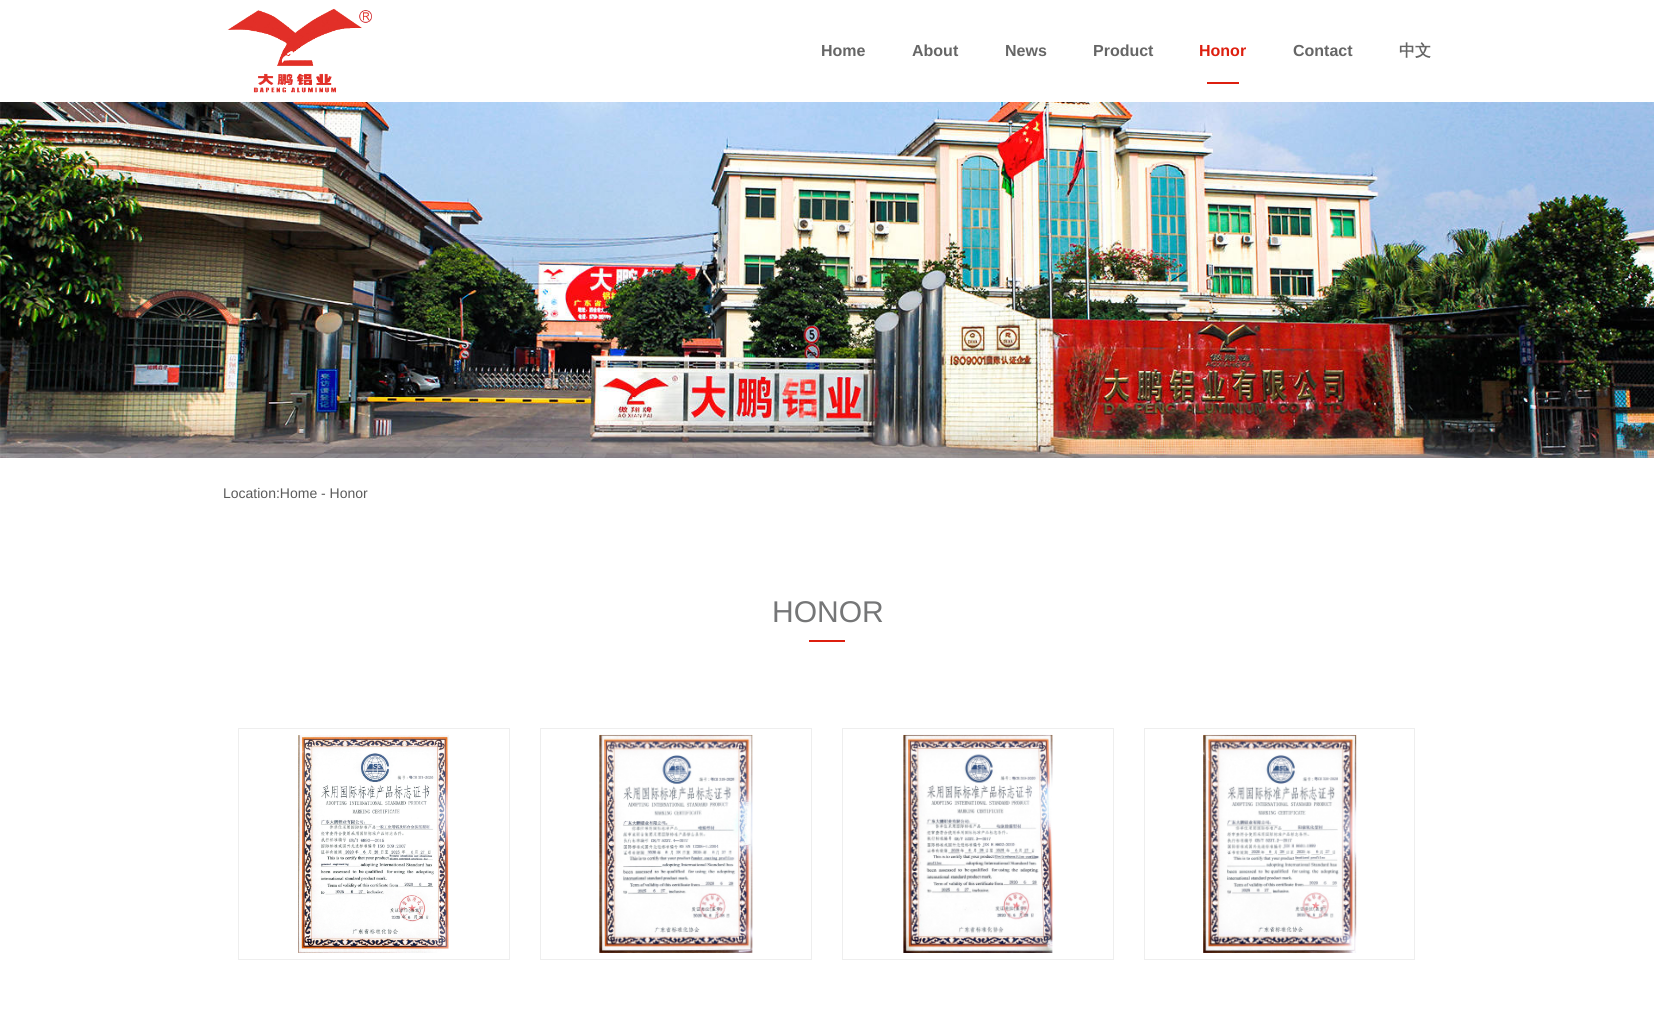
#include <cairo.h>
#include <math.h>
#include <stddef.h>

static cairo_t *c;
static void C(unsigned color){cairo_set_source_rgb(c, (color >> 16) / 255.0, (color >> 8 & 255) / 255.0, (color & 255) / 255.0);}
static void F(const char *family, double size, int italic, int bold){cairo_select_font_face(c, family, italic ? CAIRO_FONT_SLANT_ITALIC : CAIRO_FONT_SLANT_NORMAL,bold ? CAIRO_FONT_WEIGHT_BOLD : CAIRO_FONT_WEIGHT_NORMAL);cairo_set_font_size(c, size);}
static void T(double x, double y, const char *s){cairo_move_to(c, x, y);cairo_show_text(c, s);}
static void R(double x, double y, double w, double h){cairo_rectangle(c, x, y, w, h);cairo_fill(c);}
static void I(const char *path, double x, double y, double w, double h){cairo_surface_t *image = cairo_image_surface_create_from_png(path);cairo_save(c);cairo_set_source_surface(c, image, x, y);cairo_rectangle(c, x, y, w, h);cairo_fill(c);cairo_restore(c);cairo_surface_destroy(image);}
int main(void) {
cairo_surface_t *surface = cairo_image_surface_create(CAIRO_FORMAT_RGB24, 1654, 1015);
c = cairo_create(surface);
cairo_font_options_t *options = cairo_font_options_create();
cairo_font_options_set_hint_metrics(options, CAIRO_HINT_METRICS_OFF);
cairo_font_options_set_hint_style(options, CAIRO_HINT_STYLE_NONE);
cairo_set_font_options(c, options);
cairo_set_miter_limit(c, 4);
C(0xffffff);
cairo_paint(c);
I("1.png",227,8,145,85);
F("Liberation Sans",16,0,1);
C(0x666666);
T(821,56,"Home");
T(912,56,"About");
T(1005,56,"News");
T(1093,56,"Product");
C(0xdd1f0f);
T(1199,56,"Honor");
R(1207,82,32,2);
C(0x666666);
T(1293,56,"Contact");
F("WenQuanYi Zen Hei",16,0,1);
T(1399,56,"中文");
I("2.png",0,102,1654,356);
F("Liberation Sans",14,0,0);
C(0x5a5a5a);
T(223,498,"Location:Home - Honor");
F("Liberation Sans",30,0,0);
C(0x757677);
T(772,622,"HONOR");
C(0xdd1f0f);
R(809,640,36,2);
cairo_rectangle(c,238.5,728.5,271,231);
C(0xeeeeee);
cairo_set_line_width(c,1);
cairo_stroke(c);
I("3.png",298,735,151,218);
cairo_rectangle(c,540.5,728.5,271,231);
cairo_stroke(c);
I("4.png",599,734,154,219);
cairo_rectangle(c,842.5,728.5,271,231);
cairo_stroke(c);
I("5.png",903,734,150,219);
cairo_rectangle(c,1144.5,728.5,270,231);
cairo_stroke(c);
I("6.png",1203,734,154,219);
cairo_surface_write_to_png(surface, "o.png");
cairo_font_options_destroy(options);
cairo_destroy(c);
cairo_surface_destroy(surface);
return 0;
}
